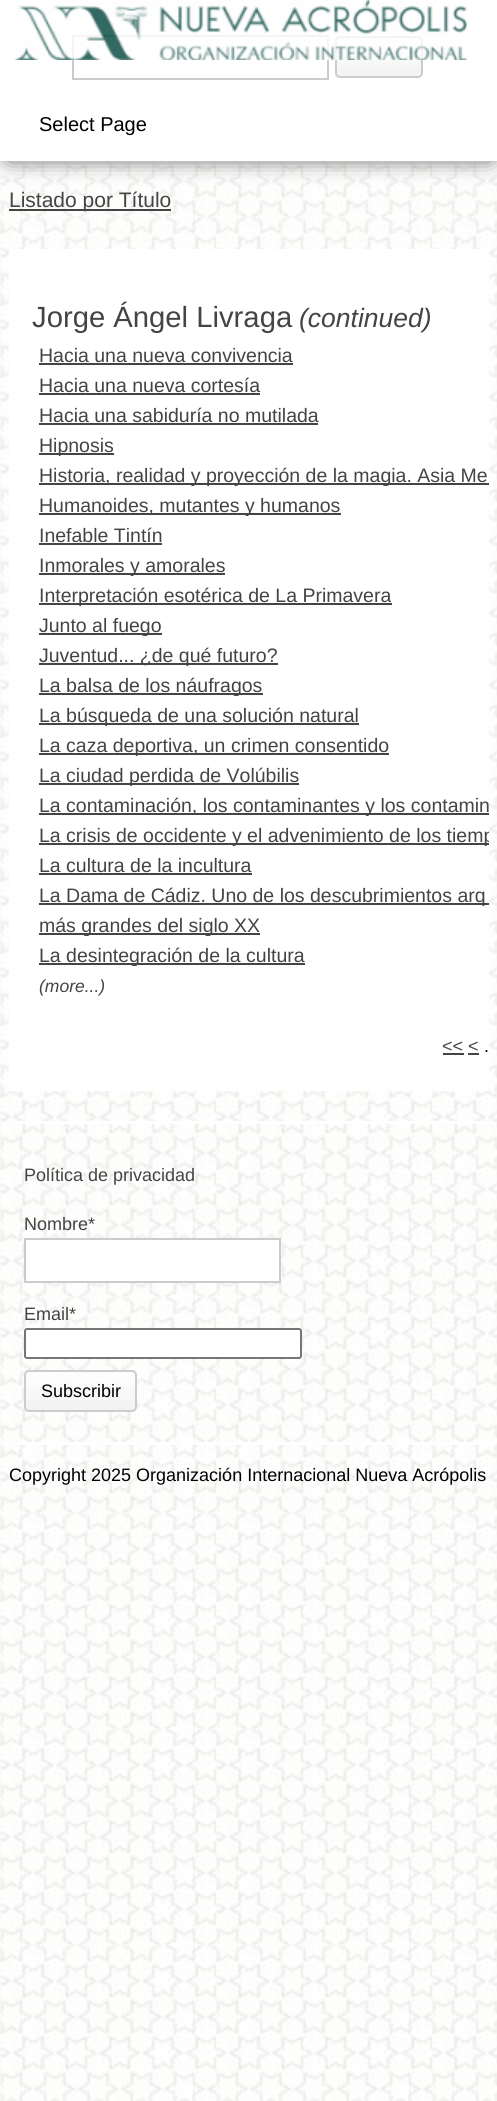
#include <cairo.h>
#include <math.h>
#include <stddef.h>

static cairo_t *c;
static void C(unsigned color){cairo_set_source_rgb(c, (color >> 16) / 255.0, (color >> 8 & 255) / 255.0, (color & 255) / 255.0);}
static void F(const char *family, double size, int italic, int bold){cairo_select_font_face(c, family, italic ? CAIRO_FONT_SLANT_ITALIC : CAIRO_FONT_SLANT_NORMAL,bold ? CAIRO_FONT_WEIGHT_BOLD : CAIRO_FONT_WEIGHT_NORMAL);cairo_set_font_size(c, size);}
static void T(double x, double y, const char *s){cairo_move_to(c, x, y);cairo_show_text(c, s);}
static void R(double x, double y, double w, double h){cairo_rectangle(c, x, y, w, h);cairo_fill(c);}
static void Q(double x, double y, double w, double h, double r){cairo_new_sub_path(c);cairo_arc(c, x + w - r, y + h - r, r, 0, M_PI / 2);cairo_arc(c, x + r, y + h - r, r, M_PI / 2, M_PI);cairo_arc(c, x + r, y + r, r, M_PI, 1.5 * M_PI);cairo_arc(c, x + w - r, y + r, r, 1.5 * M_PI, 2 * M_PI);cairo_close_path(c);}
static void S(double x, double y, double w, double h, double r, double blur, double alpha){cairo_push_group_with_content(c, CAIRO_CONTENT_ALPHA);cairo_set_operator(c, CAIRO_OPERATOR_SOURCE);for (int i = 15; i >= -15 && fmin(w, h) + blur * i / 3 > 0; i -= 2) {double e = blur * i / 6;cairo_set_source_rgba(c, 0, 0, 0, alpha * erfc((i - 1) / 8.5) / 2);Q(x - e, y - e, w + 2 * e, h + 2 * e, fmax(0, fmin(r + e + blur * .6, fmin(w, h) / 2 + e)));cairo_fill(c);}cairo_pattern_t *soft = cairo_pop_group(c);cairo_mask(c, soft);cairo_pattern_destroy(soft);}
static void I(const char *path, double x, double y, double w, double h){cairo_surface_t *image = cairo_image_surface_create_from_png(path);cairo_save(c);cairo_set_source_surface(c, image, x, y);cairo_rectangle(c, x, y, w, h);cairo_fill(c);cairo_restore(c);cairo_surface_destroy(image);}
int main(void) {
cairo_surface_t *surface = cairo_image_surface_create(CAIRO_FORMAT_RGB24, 497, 2101);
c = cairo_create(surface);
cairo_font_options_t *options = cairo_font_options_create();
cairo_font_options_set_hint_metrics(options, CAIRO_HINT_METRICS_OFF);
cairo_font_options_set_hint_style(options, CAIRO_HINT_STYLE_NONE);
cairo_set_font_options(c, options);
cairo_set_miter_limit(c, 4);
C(0xffffff);
cairo_paint(c);
I("1.png",0,161,497,1940);
C(0x555555);
S(8,14,483,145,0,11,1);
C(0xffffff);
R(0,0,497,161);
cairo_rectangle(c,73,36,255,43);
C(0xcccccc);
cairo_stroke(c);
I("3.png",335,51,88,26);
Q(336,37,86,40,4);
cairo_stroke(c);
I("2.png",15,0,452,60);
F("Liberation Sans",20,0,0);
C(0x000000);
T(39,131,"Select Page");
C(0x444444);
R(9,209,162,2);
F("Liberation Sans",21,0,0);
T(9,207,"Listado por Título");
C(0xffffff);
R(9,249,480,842);
F("Liberation Sans",29.25,0,0);
C(0x444444);
T(32,327,"Jorge Ángel Livraga");
F("Liberation Sans",26.5,1,0);
T(299,327,"(continued)");
F("Liberation Sans",19.5,0,0);
T(39,362,"Hacia una nueva convivencia");
R(39,363,254,2);
T(39,392,"Hacia una nueva cortesía");
R(39,393,221,2);
T(39,422,"Hacia una sabiduría no mutilada");
R(39,423,279,2);
R(39,453,75,2);
T(39,452,"Hipnosis");
R(39,483,450,2);
T(39,482,"Historia, realidad y proyección de la magia. Asia Me");
R(39,513,302,2);
T(39,512,"Humanoides, mutantes y humanos");
T(39,542,"Inefable Tintín");
R(39,543,123,2);
R(39,573,186,2);
T(39,572,"Inmorales y amorales");
R(39,603,353,2);
T(39,602,"Interpretación esotérica de La Primavera");
R(39,633,123,2);
T(39,632,"Junto al fuego");
R(39,663,239,2);
T(39,662,"Juventud... ¿de qué futuro?");
R(39,693,224,2);
T(39,692,"La balsa de los náufragos");
R(39,723,320,2);
T(39,722,"La búsqueda de una solución natural");
R(39,753,350,2);
T(39,752,"La caza deportiva, un crimen consentido");
R(39,783,260,2);
T(39,782,"La ciudad perdida de Volúbilis");
R(39,813,450,2);
T(39,812,"La contaminación, los contaminantes y los contamin");
R(39,843,450,2);
cairo_save(c);
cairo_rectangle(c,9,0,480,1520);
cairo_clip(c);
T(39,842,"La crisis de occidente y el advenimiento de los tiemp");
cairo_restore(c);
T(39,872,"La cultura de la incultura");
R(39,873,213,2);
R(39,903,450,2);
T(39,902,"La Dama de Cádiz. Uno de los descubrimientos arq");
R(39,933,221,2);
T(39,932,"más grandes del siglo XX");
R(39,963,266,2);
T(39,962,"La desintegración de la cultura");
F("Liberation Sans",17.5,1,0);
T(39,992,"(more...)");
F("Liberation Sans",18,0,0);
T(442,1052,"<< <");
R(443,1053,21,2);
C(0x000000);
T(484,1052,".");
C(0x444444);
R(468,1053,11,2);
C(0xffffff);
R(9,1121,480,3);
C(0x444444);
T(24,1181,"Política de privacidad");
T(24,1230,"Nombre*");
C(0xffffff);
cairo_rectangle(c,25,1239,255,43);
cairo_fill_preserve(c);
C(0xcccccc);
cairo_stroke(c);
C(0x444444);
T(24,1320,"Email*");
C(0xffffff);
Q(25,1329,276,29,2);
cairo_fill_preserve(c);
C(0x767676);
cairo_stroke(c);
I("4.png",24,1371,112,39);
Q(25,1371,111,40,4);
C(0xcccccc);
cairo_stroke(c);
C(0x000000);
T(41,1397,"Subscribir");
C(0xffffff);
R(9,1442,480,3);
C(0x000000);
T(9,1481,"Copyright 2025 Organización Internacional Nueva Acrópolis");
cairo_surface_write_to_png(surface, "o.png");
cairo_font_options_destroy(options);
cairo_destroy(c);
cairo_surface_destroy(surface);
return 0;
}
